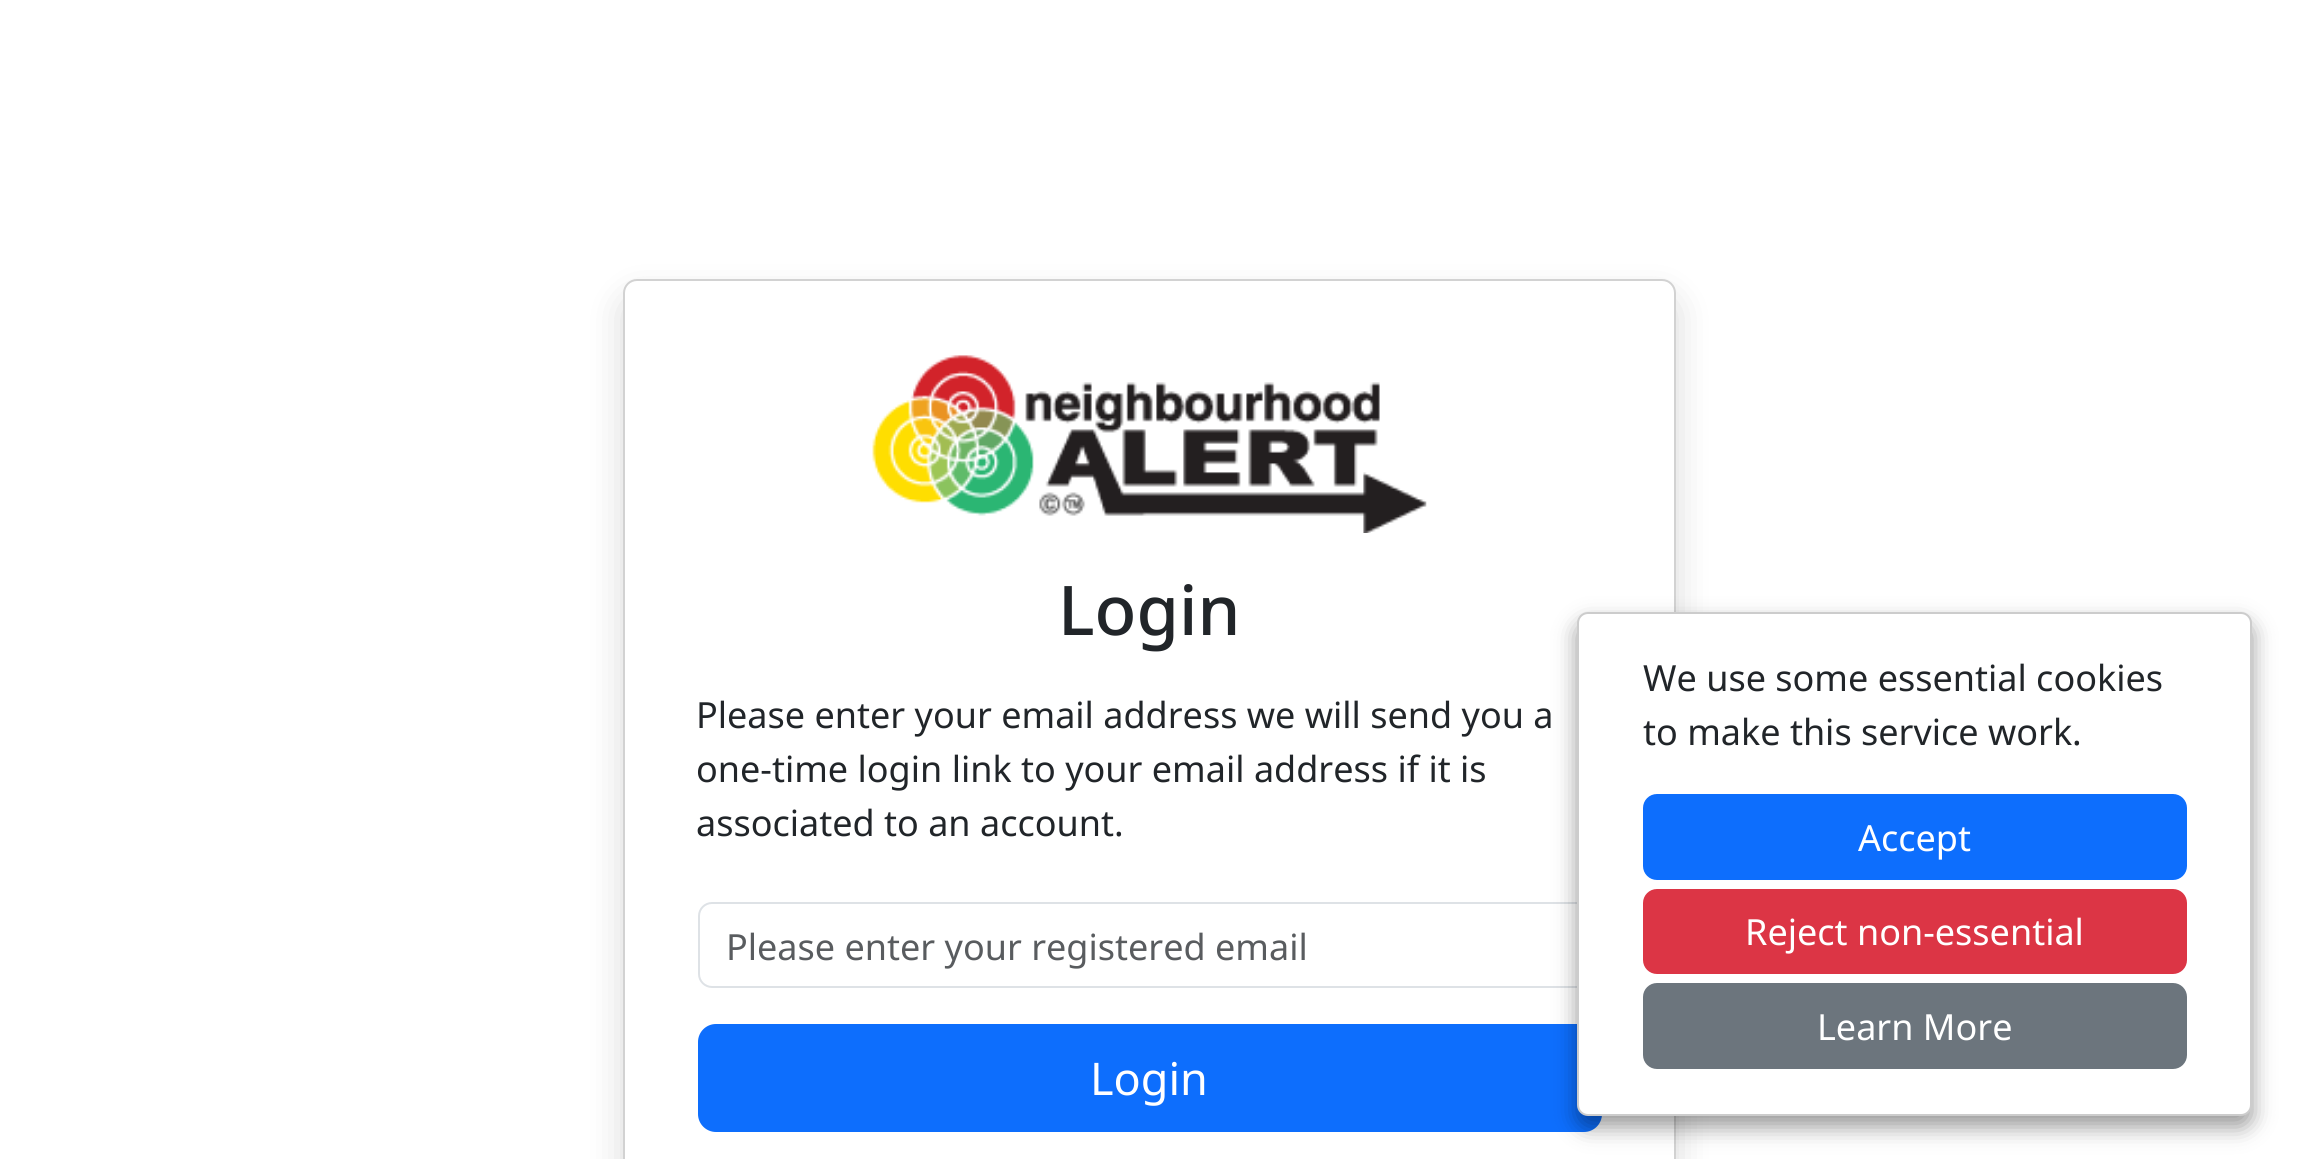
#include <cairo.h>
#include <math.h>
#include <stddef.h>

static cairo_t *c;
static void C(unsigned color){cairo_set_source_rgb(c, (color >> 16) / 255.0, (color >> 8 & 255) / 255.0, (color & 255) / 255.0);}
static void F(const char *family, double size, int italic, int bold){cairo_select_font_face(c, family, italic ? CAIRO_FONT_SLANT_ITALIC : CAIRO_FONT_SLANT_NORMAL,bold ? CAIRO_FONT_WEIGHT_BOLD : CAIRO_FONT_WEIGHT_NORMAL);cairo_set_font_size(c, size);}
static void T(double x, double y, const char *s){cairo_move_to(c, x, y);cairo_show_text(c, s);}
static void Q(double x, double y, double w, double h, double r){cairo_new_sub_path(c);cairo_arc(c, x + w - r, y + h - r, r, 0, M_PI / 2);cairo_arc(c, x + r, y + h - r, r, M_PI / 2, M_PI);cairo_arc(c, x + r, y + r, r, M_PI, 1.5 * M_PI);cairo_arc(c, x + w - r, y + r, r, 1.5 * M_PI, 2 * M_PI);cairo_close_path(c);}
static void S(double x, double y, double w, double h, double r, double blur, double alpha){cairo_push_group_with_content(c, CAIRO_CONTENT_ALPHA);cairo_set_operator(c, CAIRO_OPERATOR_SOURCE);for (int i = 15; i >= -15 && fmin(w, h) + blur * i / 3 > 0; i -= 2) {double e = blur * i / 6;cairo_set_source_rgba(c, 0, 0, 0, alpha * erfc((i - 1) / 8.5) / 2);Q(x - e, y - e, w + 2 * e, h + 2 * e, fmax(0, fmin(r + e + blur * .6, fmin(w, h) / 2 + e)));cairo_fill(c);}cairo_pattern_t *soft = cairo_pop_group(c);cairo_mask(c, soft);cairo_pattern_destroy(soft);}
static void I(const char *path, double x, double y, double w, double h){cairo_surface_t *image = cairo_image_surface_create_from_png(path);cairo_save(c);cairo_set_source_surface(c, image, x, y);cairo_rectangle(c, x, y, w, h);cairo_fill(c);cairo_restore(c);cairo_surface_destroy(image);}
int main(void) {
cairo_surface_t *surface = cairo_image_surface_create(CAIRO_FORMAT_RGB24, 2297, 1159);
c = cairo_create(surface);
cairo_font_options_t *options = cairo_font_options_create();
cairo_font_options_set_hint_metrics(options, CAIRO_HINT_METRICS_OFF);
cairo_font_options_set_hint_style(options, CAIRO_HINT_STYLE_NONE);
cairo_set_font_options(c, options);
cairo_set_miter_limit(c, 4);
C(0xffffff);
cairo_paint(c);
C(0x000000);
S(623,297,1053,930,14,18,.15);
C(0xffffff);
Q(624,280,1051,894,13);
cairo_fill_preserve(c);
C(0xd2d2d2);
cairo_stroke(c);
I("1.png",872,355,555,178);
F("Noto Sans Medium",68.5,0,0);
C(0x212529);
T(1058,635,"Login");
F("Noto Sans",36,0,0);
T(696,728,"Please enter your email address we will send you a");
T(696,782,"one-time login link to your email address if it is");
T(696,836,"associated to an account.");
Q(699,903,902,84,13);
C(0xdee2e6);
cairo_stroke(c);
C(0x595c5f);
T(726,960,"Please enter your registered email");
C(0x0d6efd);
Q(699,1025,902,106,17);
cairo_fill_preserve(c);
cairo_stroke(c);
F("Noto Sans",45,0,0);
C(0xffffff);
T(1090,1095,"Login");
C(0x000000);
S(1577,623,675,504,11,11,.4);
C(0xffffff);
Q(1578,613,673,502,10);
cairo_fill_preserve(c);
C(0xcccccc);
cairo_stroke(c);
F("Noto Sans",36,0,0);
C(0x212529);
T(1643,691,"We use some essential cookies");
T(1643,745,"to make this service work.");
C(0x0d6efd);
Q(1644,795,542,84,13);
cairo_fill_preserve(c);
cairo_stroke(c);
C(0xffffff);
T(1858,851,"Accept");
C(0xdc3545);
Q(1644,890,542,83,13);
cairo_fill_preserve(c);
cairo_stroke(c);
C(0xffffff);
T(1745,945,"Reject non-essential");
C(0x6c757d);
Q(1644,984,542,84,13);
cairo_fill_preserve(c);
cairo_stroke(c);
C(0xffffff);
T(1817,1040,"Learn More");
cairo_surface_write_to_png(surface, "o.png");
cairo_font_options_destroy(options);
cairo_destroy(c);
cairo_surface_destroy(surface);
return 0;
}
